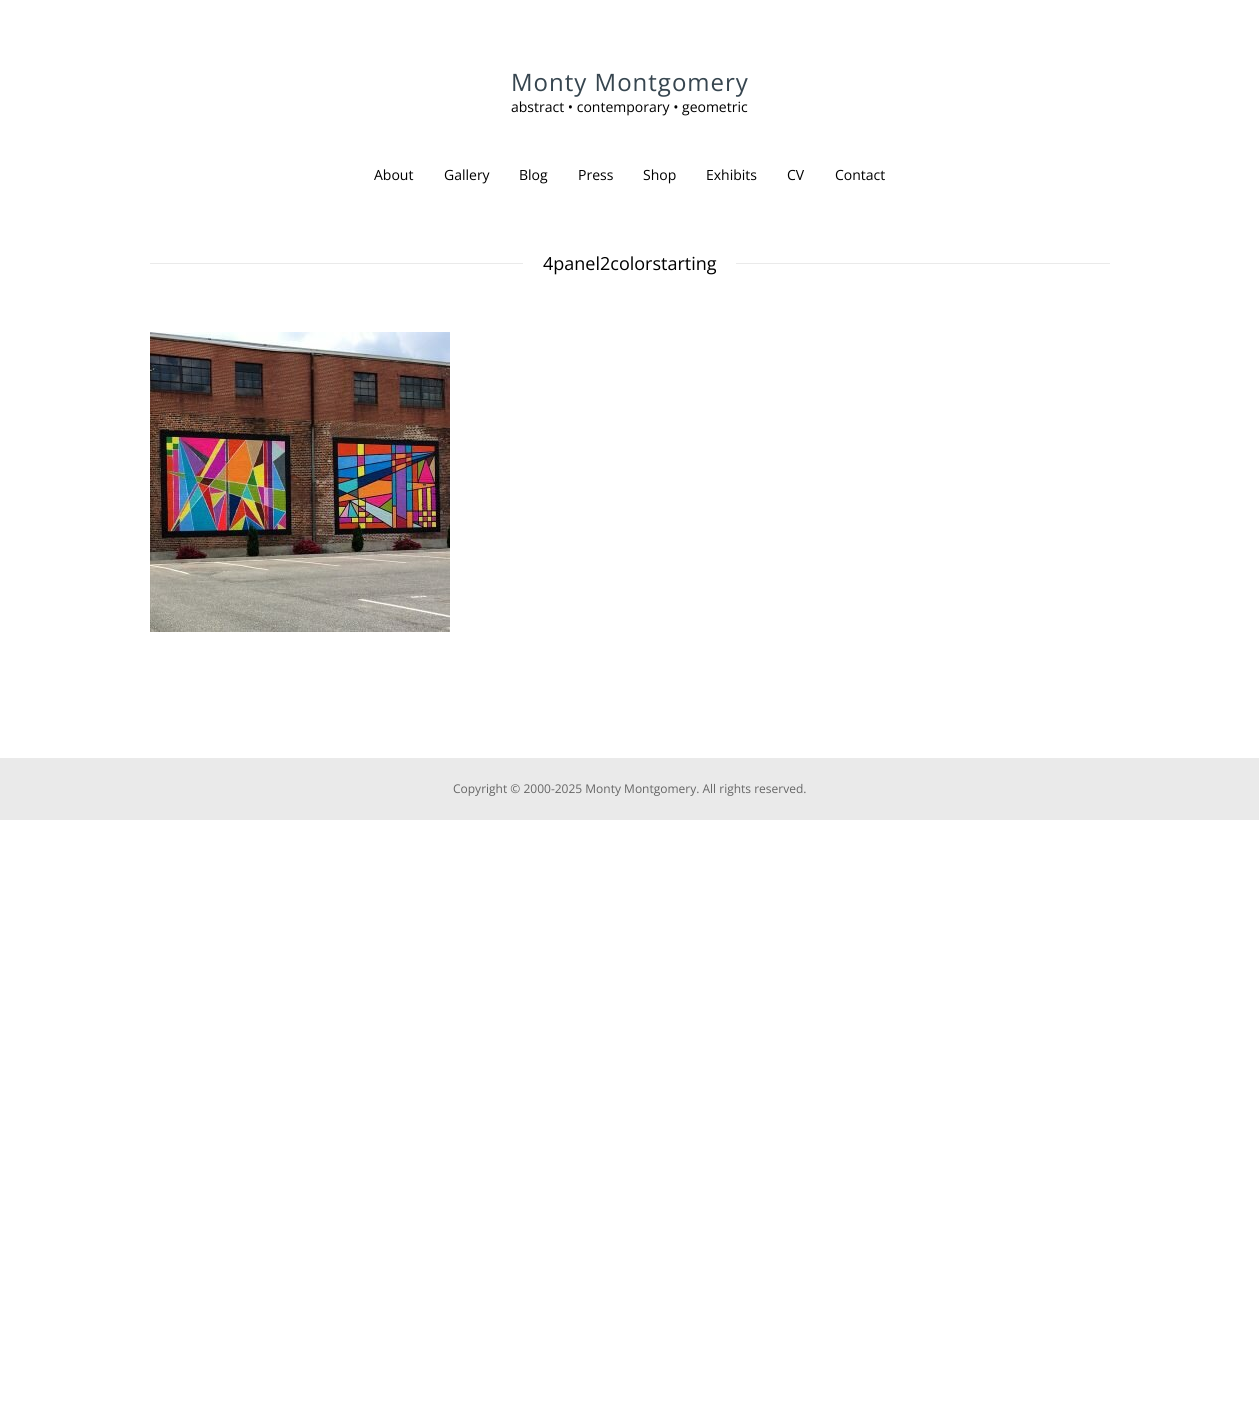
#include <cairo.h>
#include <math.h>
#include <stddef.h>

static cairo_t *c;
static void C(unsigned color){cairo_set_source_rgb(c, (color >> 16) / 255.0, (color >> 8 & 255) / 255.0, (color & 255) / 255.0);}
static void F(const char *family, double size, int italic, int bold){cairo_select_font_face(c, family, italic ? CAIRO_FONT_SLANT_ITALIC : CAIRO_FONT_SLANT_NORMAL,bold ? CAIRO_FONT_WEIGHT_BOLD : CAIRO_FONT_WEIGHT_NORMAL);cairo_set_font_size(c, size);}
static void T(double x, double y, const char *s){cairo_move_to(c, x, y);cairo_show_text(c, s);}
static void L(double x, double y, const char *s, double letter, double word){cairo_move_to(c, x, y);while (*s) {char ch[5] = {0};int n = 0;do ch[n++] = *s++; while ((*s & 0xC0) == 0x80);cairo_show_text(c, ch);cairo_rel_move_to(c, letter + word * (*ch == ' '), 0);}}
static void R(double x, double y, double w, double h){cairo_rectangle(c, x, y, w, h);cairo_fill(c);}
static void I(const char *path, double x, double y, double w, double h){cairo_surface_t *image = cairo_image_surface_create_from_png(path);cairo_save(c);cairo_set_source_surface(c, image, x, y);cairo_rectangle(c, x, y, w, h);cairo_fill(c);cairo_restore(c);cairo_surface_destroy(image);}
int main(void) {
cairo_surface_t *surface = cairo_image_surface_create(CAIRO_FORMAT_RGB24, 1259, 1418);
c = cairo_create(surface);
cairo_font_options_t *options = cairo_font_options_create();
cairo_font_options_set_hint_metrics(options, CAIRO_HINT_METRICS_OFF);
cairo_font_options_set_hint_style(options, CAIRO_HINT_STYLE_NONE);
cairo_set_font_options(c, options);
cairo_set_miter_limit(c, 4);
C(0xffffff);
cairo_paint(c);
F("Open Sans",24,0,0);
C(0x36454f);
L(511,91,"Monty Montgomery",1,0);
F("Open Sans",14,0,0);
C(0x000000);
T(511,112,"abstract • contemporary • geometric");
T(374,180,"About");
T(444,180,"Gallery");
T(519,180,"Blog");
T(578,180,"Press");
T(643,180,"Shop");
T(706,180,"Exhibits");
T(787,180,"CV");
T(835,180,"Contact");
C(0xeaeaea);
R(150,263,960,1);
C(0xffffff);
R(523,263,213,1);
F("Open Sans",18,0,0);
C(0x000000);
T(543,270,"4panel2colorstarting");
I("1.png",150,332,300,300);
C(0xeaeaea);
R(0,758,1259,62);
F("Open Sans",12,0,0);
C(0x666666);
T(453,793,"Copyright © 2000-2025 Monty Montgomery. All rights reserved.");
cairo_surface_write_to_png(surface, "o.png");
cairo_font_options_destroy(options);
cairo_destroy(c);
cairo_surface_destroy(surface);
return 0;
}
